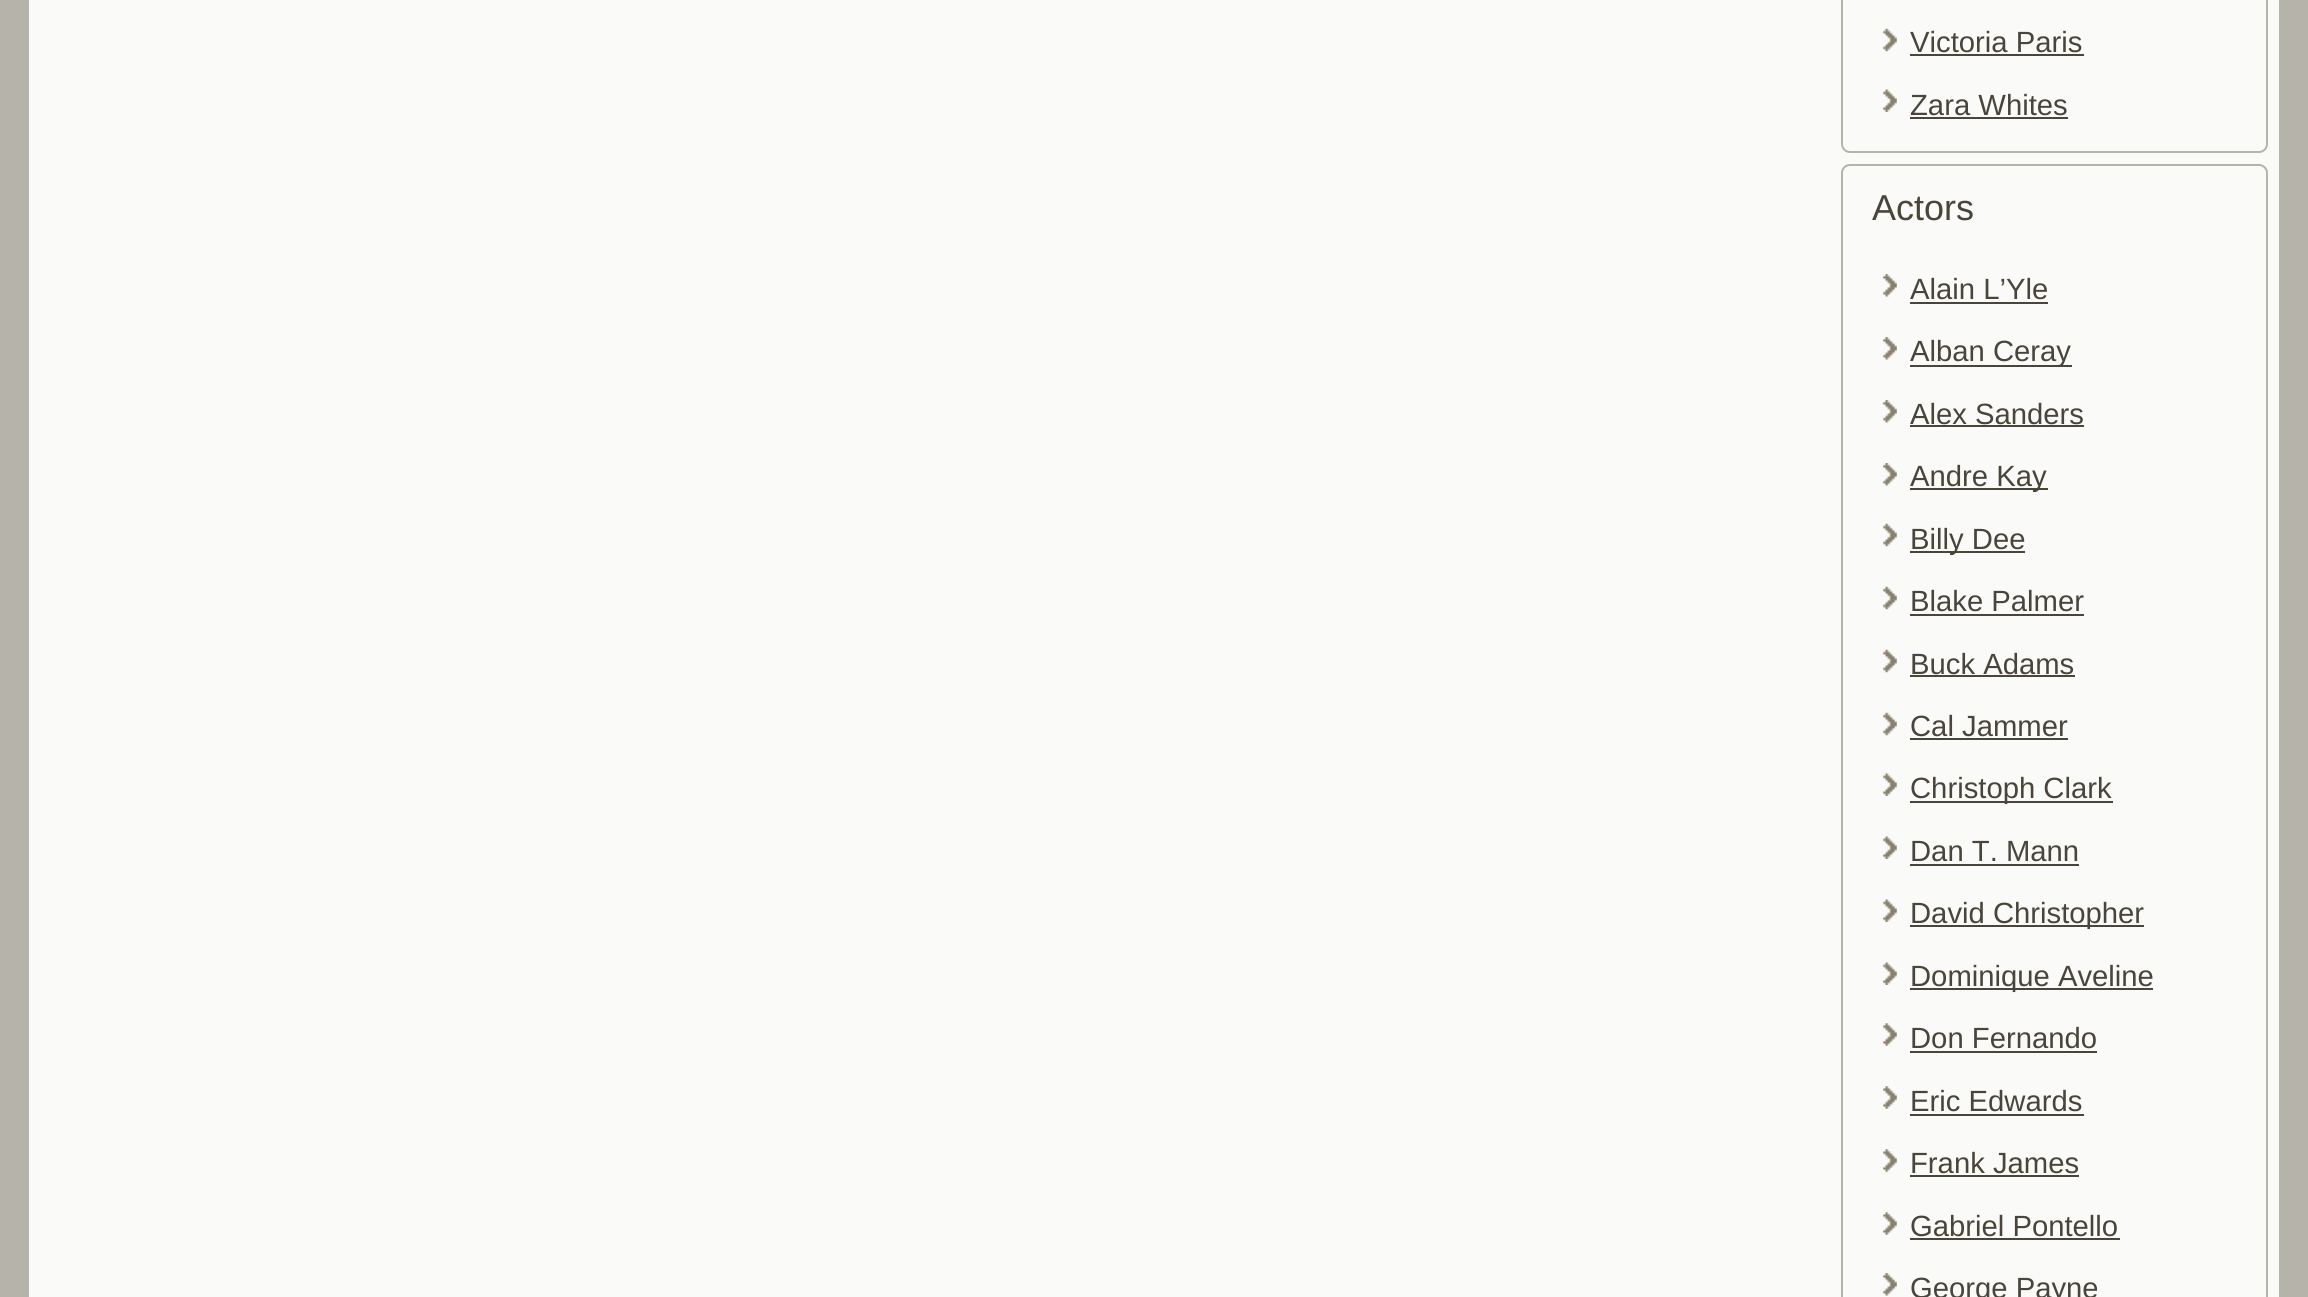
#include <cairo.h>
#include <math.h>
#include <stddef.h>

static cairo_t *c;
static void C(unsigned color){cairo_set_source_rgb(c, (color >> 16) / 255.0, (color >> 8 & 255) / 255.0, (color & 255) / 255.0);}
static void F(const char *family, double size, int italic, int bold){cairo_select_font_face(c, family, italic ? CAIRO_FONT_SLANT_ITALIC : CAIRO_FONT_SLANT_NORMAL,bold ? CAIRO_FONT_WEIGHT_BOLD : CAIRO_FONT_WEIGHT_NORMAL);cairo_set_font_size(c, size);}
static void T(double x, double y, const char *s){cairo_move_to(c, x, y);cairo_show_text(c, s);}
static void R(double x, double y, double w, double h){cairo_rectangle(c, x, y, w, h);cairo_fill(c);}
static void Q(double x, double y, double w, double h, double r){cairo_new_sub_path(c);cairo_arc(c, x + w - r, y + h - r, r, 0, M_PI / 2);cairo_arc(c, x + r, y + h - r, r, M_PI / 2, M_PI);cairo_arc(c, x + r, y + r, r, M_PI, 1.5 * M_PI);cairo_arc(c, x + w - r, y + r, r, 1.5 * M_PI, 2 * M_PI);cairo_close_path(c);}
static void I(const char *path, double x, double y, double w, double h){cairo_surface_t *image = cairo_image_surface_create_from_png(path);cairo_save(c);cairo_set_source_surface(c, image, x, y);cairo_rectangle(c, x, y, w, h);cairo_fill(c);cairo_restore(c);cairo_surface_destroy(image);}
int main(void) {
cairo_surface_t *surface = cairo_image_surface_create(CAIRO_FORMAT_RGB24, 2308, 1297);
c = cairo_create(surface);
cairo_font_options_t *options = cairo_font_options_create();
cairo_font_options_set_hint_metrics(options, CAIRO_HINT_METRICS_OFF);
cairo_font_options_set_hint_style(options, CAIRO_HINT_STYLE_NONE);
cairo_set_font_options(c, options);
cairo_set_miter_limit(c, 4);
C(0xb6b3aa);
cairo_paint(c);
C(0xfafaf9);
R(29,0,2250,1297);
Q(1842,-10,425,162,8);
C(0xb6b3aa);
cairo_stroke(c);
I("1.png",1883,28,14,24);
F("Liberation Sans",29.25,0,0);
C(0x4a453b);
T(1910,52,"Victoria Paris");
R(1910,54,174,2);
I("2.png",1883,89,14,23);
T(1910,115,"Zara Whites");
R(1910,117,158,2);
Q(1842,165,425,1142,8);
C(0xb6b3aa);
cairo_stroke(c);
F("Liberation Sans",36,0,0);
C(0x4a453b);
T(1872,220,"Actors");
I("3.png",1883,274,14,23);
F("Liberation Sans",29.25,0,0);
T(1910,299,"Alain L’Yle");
R(1910,302,138,2);
I("3.png",1883,337,14,23);
R(1910,365,162,2);
T(1910,361,"Alban Ceray");
I("3.png",1883,400,14,23);
T(1910,424,"Alex Sanders");
R(1910,425,174,2);
I("3.png",1883,463,14,23);
R(1910,488,138,2);
T(1910,486,"Andre Kay");
I("1.png",1883,523,14,24);
R(1910,551,115,2);
T(1910,549,"Billy Dee");
I("1.png",1883,586,14,24);
T(1910,611,"Blake Palmer");
R(1910,614,174,2);
I("1.png",1883,649,14,24);
T(1910,674,"Buck Adams");
R(1910,675,165,2);
I("1.png",1883,712,14,24);
T(1910,736,"Cal Jammer");
R(1910,738,158,2);
I("2.png",1883,773,14,23);
R(1910,801,203,2);
T(1910,798,"Christoph Clark");
I("2.png",1883,836,14,23);
T(1910,861,"Dan T. Mann");
R(1910,864,169,2);
I("2.png",1883,899,14,23);
R(1910,925,234,2);
T(1910,923,"David Christopher");
I("2.png",1883,962,14,23);
R(1910,988,243,2);
T(1910,986,"Dominique Aveline");
I("4.png",1883,1023,14,23);
T(1910,1048,"Don Fernando");
R(1910,1051,187,2);
I("4.png",1883,1086,14,23);
T(1910,1111,"Eric Edwards");
R(1910,1114,174,2);
I("4.png",1883,1149,14,23);
T(1910,1173,"Frank James");
R(1910,1175,169,2);
I("4.png",1883,1212,14,23);
T(1910,1236,"Gabriel Pontello");
R(1910,1238,210,2);
I("3.png",1883,1273,14,23);
T(1910,1298,"George Payne");
cairo_surface_write_to_png(surface, "o.png");
cairo_font_options_destroy(options);
cairo_destroy(c);
cairo_surface_destroy(surface);
return 0;
}
